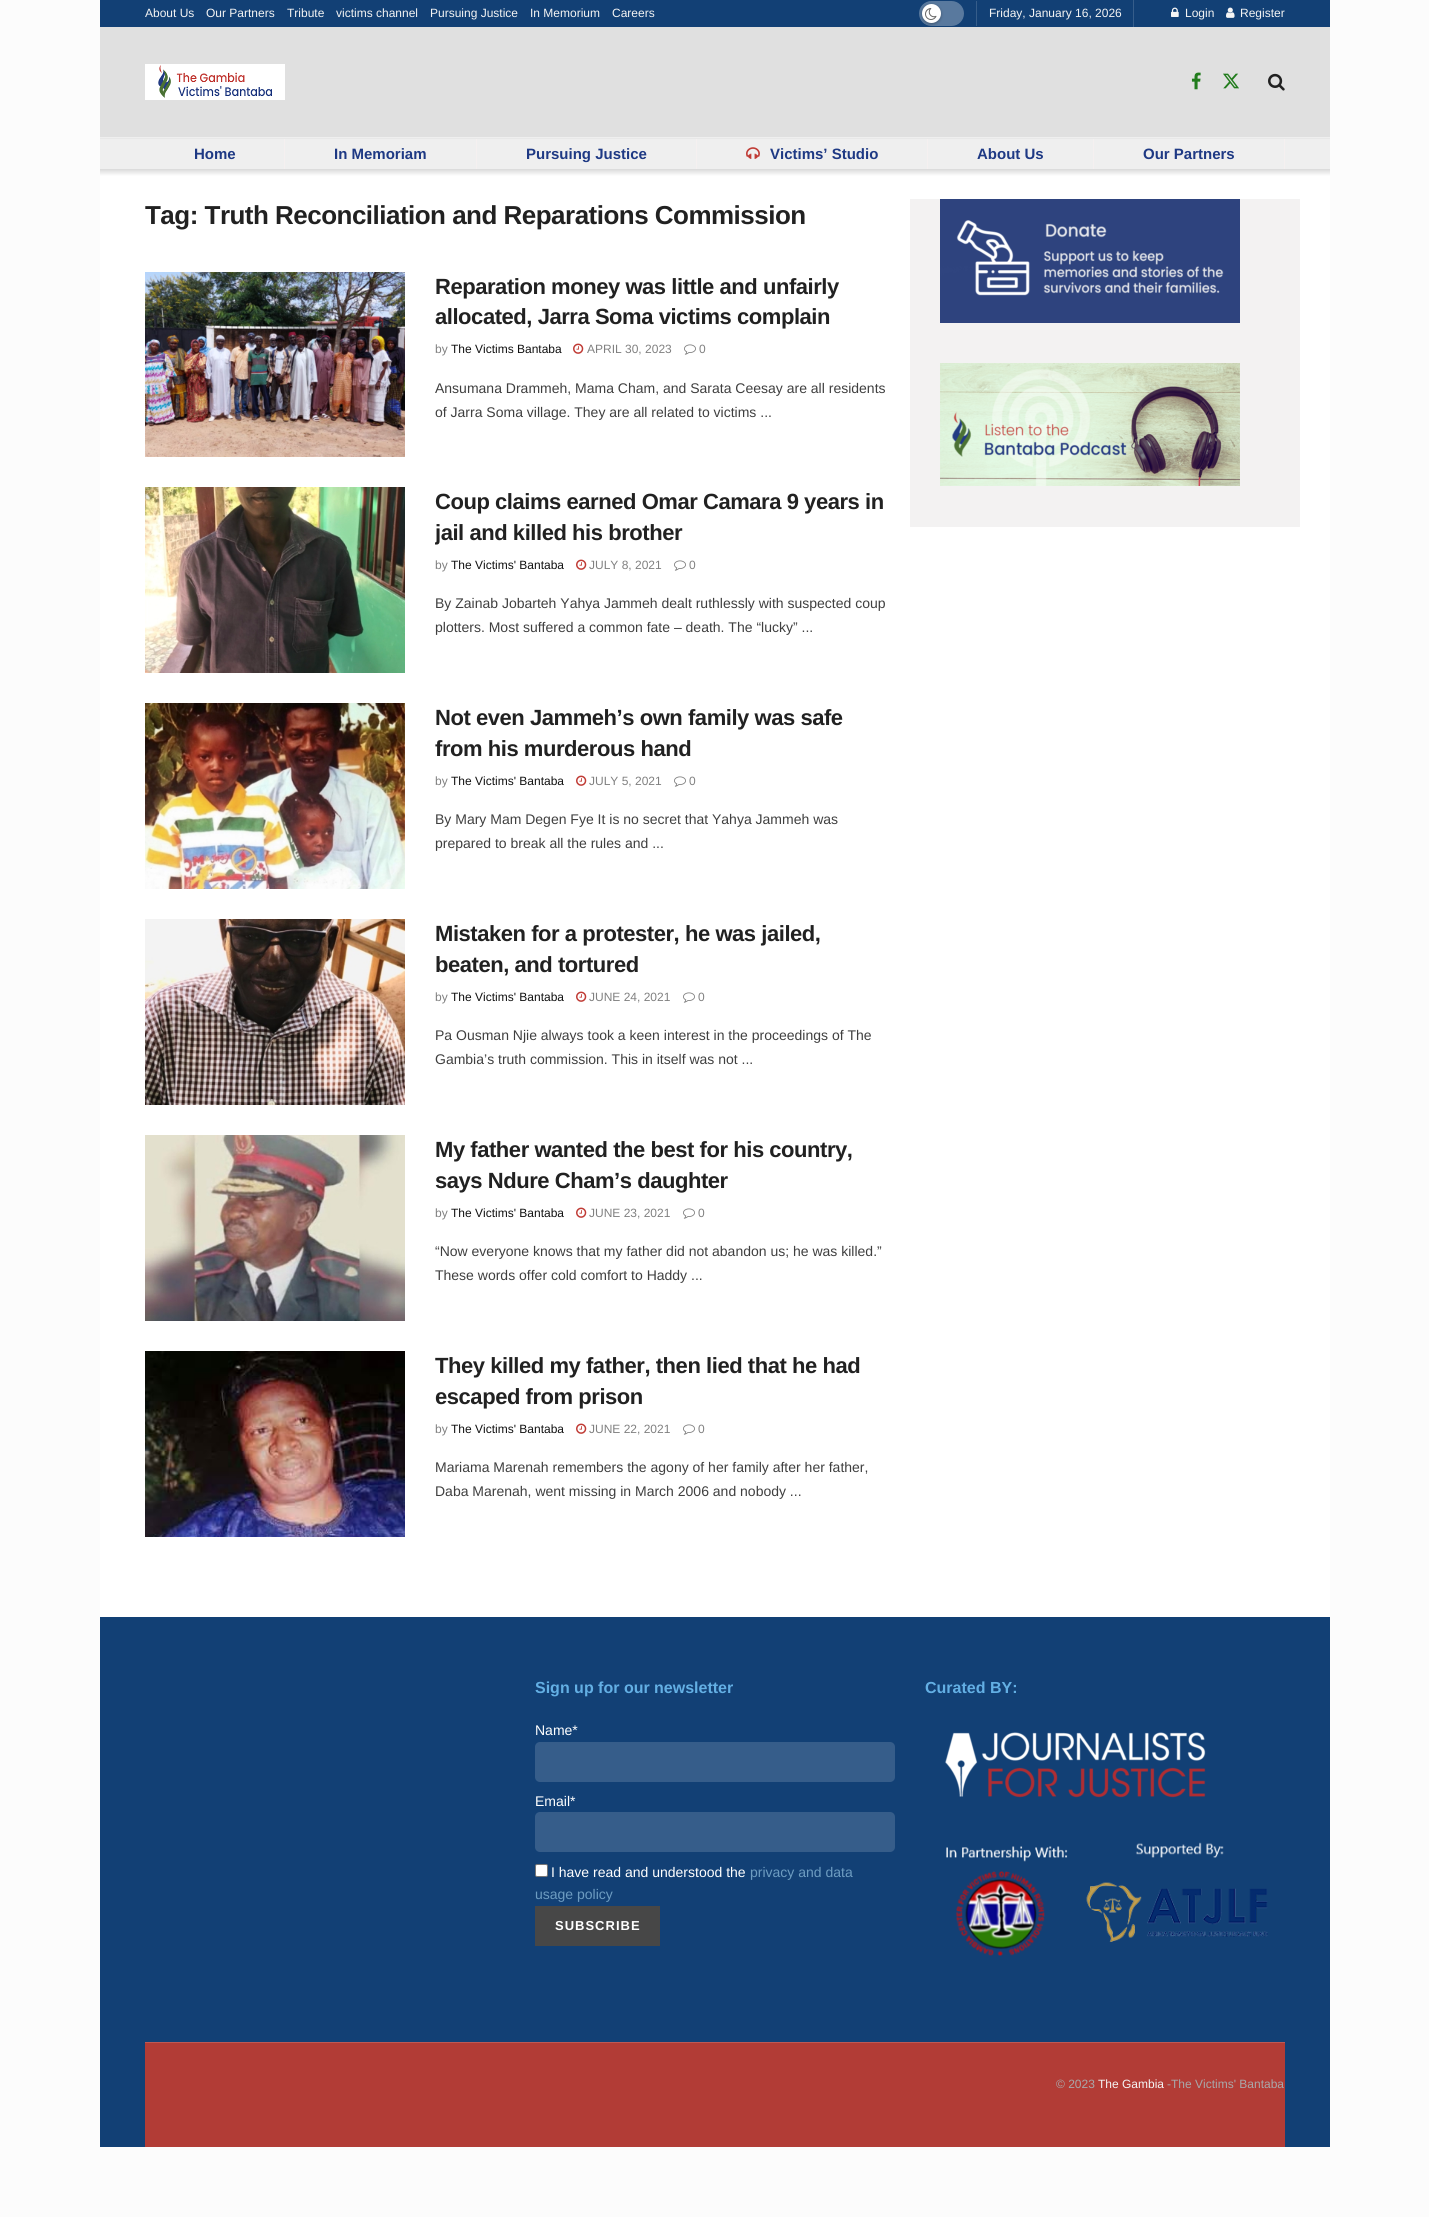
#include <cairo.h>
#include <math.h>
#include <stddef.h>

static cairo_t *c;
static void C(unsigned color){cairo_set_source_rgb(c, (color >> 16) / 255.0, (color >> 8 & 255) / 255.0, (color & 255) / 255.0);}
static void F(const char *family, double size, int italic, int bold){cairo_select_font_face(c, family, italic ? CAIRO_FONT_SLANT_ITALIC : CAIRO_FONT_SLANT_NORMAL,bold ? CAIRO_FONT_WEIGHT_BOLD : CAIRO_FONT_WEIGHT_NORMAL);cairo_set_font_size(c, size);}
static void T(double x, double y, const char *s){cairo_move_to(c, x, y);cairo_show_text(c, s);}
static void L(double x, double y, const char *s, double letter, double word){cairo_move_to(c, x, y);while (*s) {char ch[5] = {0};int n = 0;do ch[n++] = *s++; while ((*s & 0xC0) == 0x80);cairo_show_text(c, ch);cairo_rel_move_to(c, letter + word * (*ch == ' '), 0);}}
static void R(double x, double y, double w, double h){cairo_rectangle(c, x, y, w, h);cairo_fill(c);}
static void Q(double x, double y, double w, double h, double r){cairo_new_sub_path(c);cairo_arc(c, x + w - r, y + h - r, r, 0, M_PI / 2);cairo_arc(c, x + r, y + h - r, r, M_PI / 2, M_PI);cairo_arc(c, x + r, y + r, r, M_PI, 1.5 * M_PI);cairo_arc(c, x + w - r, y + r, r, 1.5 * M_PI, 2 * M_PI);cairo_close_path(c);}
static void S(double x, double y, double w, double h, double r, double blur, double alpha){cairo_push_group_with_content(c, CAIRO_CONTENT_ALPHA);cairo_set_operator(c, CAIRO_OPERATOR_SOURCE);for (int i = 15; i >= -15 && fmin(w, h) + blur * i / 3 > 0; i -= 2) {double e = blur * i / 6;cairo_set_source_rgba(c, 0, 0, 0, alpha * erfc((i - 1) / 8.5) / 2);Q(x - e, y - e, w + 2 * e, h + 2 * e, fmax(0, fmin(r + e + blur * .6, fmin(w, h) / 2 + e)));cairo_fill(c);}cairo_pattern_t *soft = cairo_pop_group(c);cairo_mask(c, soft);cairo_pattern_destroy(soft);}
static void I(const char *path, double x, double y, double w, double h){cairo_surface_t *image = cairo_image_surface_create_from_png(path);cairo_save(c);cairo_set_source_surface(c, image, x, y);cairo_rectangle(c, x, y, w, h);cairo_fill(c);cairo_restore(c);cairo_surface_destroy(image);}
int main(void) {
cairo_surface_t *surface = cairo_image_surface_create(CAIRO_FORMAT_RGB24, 1429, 2217);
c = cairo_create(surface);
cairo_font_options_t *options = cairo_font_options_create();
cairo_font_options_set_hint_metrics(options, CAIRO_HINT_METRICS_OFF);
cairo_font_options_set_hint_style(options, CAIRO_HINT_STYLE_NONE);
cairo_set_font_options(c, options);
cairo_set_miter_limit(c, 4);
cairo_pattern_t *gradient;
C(0xfcfcfc);
cairo_paint(c);
C(0x124075);
R(100,0,1230,27);
F("Liberation Sans",12,0,0);
C(0xf4f4f4);
T(145,17,"About Us");
T(206,17,"Our Partners");
T(287,17,"Tribute");
T(336,17,"victims channel");
T(430,17,"Pursuing Justice");
T(530,17,"In Memorium");
T(612,17,"Careers");
C(0x365d8a);
R(976,1,1,25);
C(0x59799e);
Q(919,1,45,25,12.5);
cairo_fill(c);
C(0xe0e0e0);
R(100,27,1230,110);
C(0x000000);
S(922,5,19,19,9.5,1.5,.3);
C(0xffffff);
cairo_arc(c,931.5,13.5,9.5,0,2 * M_PI);
cairo_fill(c);
I("1.png",925,8,12,12);
C(0x365d8a);
R(1133,0,1,27);
C(0xf4f4f4);
T(989,17,"Friday, January 16, 2026");
I("2.png",1171,7,8,10);
T(1185,17,"Login");
I("3.png",1226,7,9,11);
T(1240,17,"Register");
C(0xefefef);
R(100,137,1230,1);
I("4.png",145,64,140,36);
I("5.png",1191,72,10,18);
I("6.png",1223,73,16,16);
I("7.png",1268,73,17,18);
R(100,139,1230,30);
C(0xe8e8e8);
R(100,138,1230,1);
C(0xf5f0f0);
R(1284,139,1,30);
R(284,139,1,30);
F("Liberation Sans",15,0,1);
C(0x1e3984);
T(194,159,"Home");
C(0xf5f0f0);
R(476,139,1,30);
C(0x1e3984);
T(334,159,"In Memoriam");
C(0xf5f0f0);
R(696,139,1,30);
C(0x1e3984);
T(526,159,"Pursuing Justice");
C(0xf5f0f0);
R(927,139,1,30);
I("8.png",746,147,14,12);
C(0x1e3984);
T(770,159,"Victims’ Studio");
C(0xf5f0f0);
R(1093,139,1,30);
C(0x1e3984);
T(977,159,"About Us");
T(1143,159,"Our Partners");
gradient = cairo_pattern_create_linear(715,169,715,176);
cairo_pattern_add_color_stop_rgba(gradient,0,0.851,0.851,0.851,1);
cairo_pattern_add_color_stop_rgba(gradient,1,1,1,1,1);
cairo_set_source(c,gradient);
cairo_pattern_destroy(gradient);
R(100,169,1230,6);
C(0xffffff);
R(100,176,1230,1441);
F("Liberation Sans",26,0,1);
C(0x212121);
L(145,224,"Tag: Truth Reconciliation and Reparations Commission",-.52,0);
I("9.png",145,272,260,185);
F("Liberation Sans",22,0,1);
L(435,294,"Reparation money was little and unfairly",-.45,0);
L(435,324,"allocated, Jarra Soma victims complain",-.45,0);
F("Liberation Sans",12,0,0);
C(0x808080);
T(435,353,"by");
C(0x111111);
T(451,353,"The Victims Bantaba");
I("10.png",573,343,11,11);
C(0x808080);
T(587,353,"APRIL 30, 2023");
I("11.png",684,344,12,11);
T(699,353,"0");
F("Liberation Sans",14,0,0);
C(0x3f3f3f);
T(435,393,"Ansumana Drammeh, Mama Cham, and Sarata Ceesay are all residents");
T(435,417,"of Jarra Soma village. They are all related to victims ...");
I("12.png",145,487,260,186);
F("Liberation Sans",22,0,1);
C(0x212121);
L(435,509,"Coup claims earned Omar Camara 9 years in",-.45,0);
cairo_save(c);
cairo_rectangle(c,435,487,460,152);
cairo_clip(c);
L(435,540,"jail and killed his brother",-.45,0);
cairo_restore(c);
F("Liberation Sans",12,0,0);
C(0x808080);
T(435,569,"by");
C(0x111111);
T(451,569,"The Victims' Bantaba");
I("10.png",576,559,11,11);
C(0x808080);
T(589,569,"JULY 8, 2021");
I("11.png",674,560,12,11);
T(689,569,"0");
F("Liberation Sans",14,0,0);
C(0x3f3f3f);
T(435,608,"By Zainab Jobarteh Yahya Jammeh dealt ruthlessly with suspected coup");
T(435,632,"plotters. Most suffered a common fate – death. The “lucky” ...");
I("13.png",145,703,260,186);
F("Liberation Sans",22,0,1);
C(0x212121);
L(435,725,"Not even Jammeh’s own family was safe",-.45,0);
L(435,756,"from his murderous hand",-.45,0);
F("Liberation Sans",12,0,0);
C(0x808080);
T(435,785,"by");
C(0x111111);
T(451,785,"The Victims' Bantaba");
I("10.png",576,775,11,11);
C(0x808080);
T(589,785,"JULY 5, 2021");
I("11.png",674,776,12,11);
T(689,785,"0");
F("Liberation Sans",14,0,0);
C(0x3f3f3f);
T(435,824,"By Mary Mam Degen Fye It is no secret that Yahya Jammeh was");
T(435,848,"prepared to break all the rules and ...");
I("14.png",145,919,260,186);
F("Liberation Sans",22,0,1);
C(0x212121);
L(435,941,"Mistaken for a protester, he was jailed,",-.45,0);
L(435,972,"beaten, and tortured",-.45,0);
F("Liberation Sans",12,0,0);
C(0x808080);
T(435,1001,"by");
C(0x111111);
T(451,1001,"The Victims' Bantaba");
I("10.png",576,991,11,11);
C(0x808080);
T(589,1001,"JUNE 24, 2021");
I("11.png",683,992,12,11);
T(698,1001,"0");
F("Liberation Sans",14,0,0);
C(0x3f3f3f);
T(435,1040,"Pa Ousman Njie always took a keen interest in the proceedings of The");
T(435,1064,"Gambia’s truth commission. This in itself was not ...");
I("15.png",145,1135,260,186);
F("Liberation Sans",22,0,1);
C(0x212121);
L(435,1157,"My father wanted the best for his country,",-.45,0);
L(435,1188,"says Ndure Cham’s daughter",-.45,0);
F("Liberation Sans",12,0,0);
C(0x808080);
T(435,1217,"by");
C(0x111111);
T(451,1217,"The Victims' Bantaba");
I("10.png",576,1207,11,11);
C(0x808080);
T(589,1217,"JUNE 23, 2021");
I("11.png",683,1208,12,11);
T(698,1217,"0");
F("Liberation Sans",14,0,0);
C(0x3f3f3f);
T(435,1256,"“Now everyone knows that my father did not abandon us; he was killed.”");
T(435,1280,"These words offer cold comfort to Haddy ...");
I("16.png",145,1351,260,186);
cairo_save(c);
cairo_rectangle(c,435,1351,460,152);
cairo_clip(c);
F("Liberation Sans",22,0,1);
C(0x212121);
L(435,1373,"They killed my father, then lied that he had",-.45,0);
cairo_restore(c);
F("Liberation Sans",22,0,1);
C(0x212121);
L(435,1404,"escaped from prison",-.45,0);
F("Liberation Sans",12,0,0);
C(0x808080);
T(435,1433,"by");
C(0x111111);
T(451,1433,"The Victims' Bantaba");
I("10.png",576,1423,11,11);
C(0x808080);
T(589,1433,"JUNE 22, 2021");
I("11.png",683,1424,12,11);
T(698,1433,"0");
F("Liberation Sans",14,0,0);
C(0x3f3f3f);
T(435,1472,"Mariama Marenah remembers the agony of her family after her father,");
T(435,1496,"Daba Marenah, went missing in March 2006 and nobody ...");
C(0xf3f2f2);
R(910,199,390,328);
I("17.png",940,199,300,124);
I("18.png",940,363,300,123);
C(0x124075);
R(100,1617,1230,530);
F("Liberation Sans",16,0,1);
C(0x63afe4);
T(535,1693,"Sign up for our newsletter");
F("Liberation Sans",14,0,0);
C(0xffffff);
T(535,1735,"Name*");
C(0x365d8a);
Q(535,1742,360,40,5);
cairo_fill(c);
C(0xffffff);
T(535,1806,"Email*");
C(0x365d8a);
Q(535,1812,360,40,5);
cairo_fill(c);
C(0xffffff);
Q(535.5,1864.5,12,12,1.5);
cairo_fill_preserve(c);
C(0x767676);
cairo_set_line_width(c,1);
cairo_stroke(c);
C(0xffffff);
T(551,1877,"I have read and understood the");
C(0x6d9cc1);
T(750,1877,"privacy and data");
T(535,1899,"usage policy");
C(0x474747);
R(535,1906,125,40);
F("Liberation Sans",13,0,1);
C(0xffffff);
L(555,1930,"SUBSCRIBE",1,0);
F("Liberation Sans",16,0,1);
C(0x63afe4);
T(925,1693,"Curated BY:");
I("19.png",945,1732,261,66);
I("20.png",946,1842,322,114);
C(0xb23c36);
R(145,2043,1140,104);
C(0xbe5954);
R(145,2042,1140,1);
F("Liberation Sans",12,0,0);
C(0xa8a8aa);
T(1056,2088,"© 2023");
C(0xf4f4f4);
T(1098,2088,"The Gambia");
C(0xa8a8aa);
T(1167,2088,"-The Victims' Bantaba");
cairo_surface_write_to_png(surface, "o.png");
cairo_font_options_destroy(options);
cairo_destroy(c);
cairo_surface_destroy(surface);
return 0;
}
